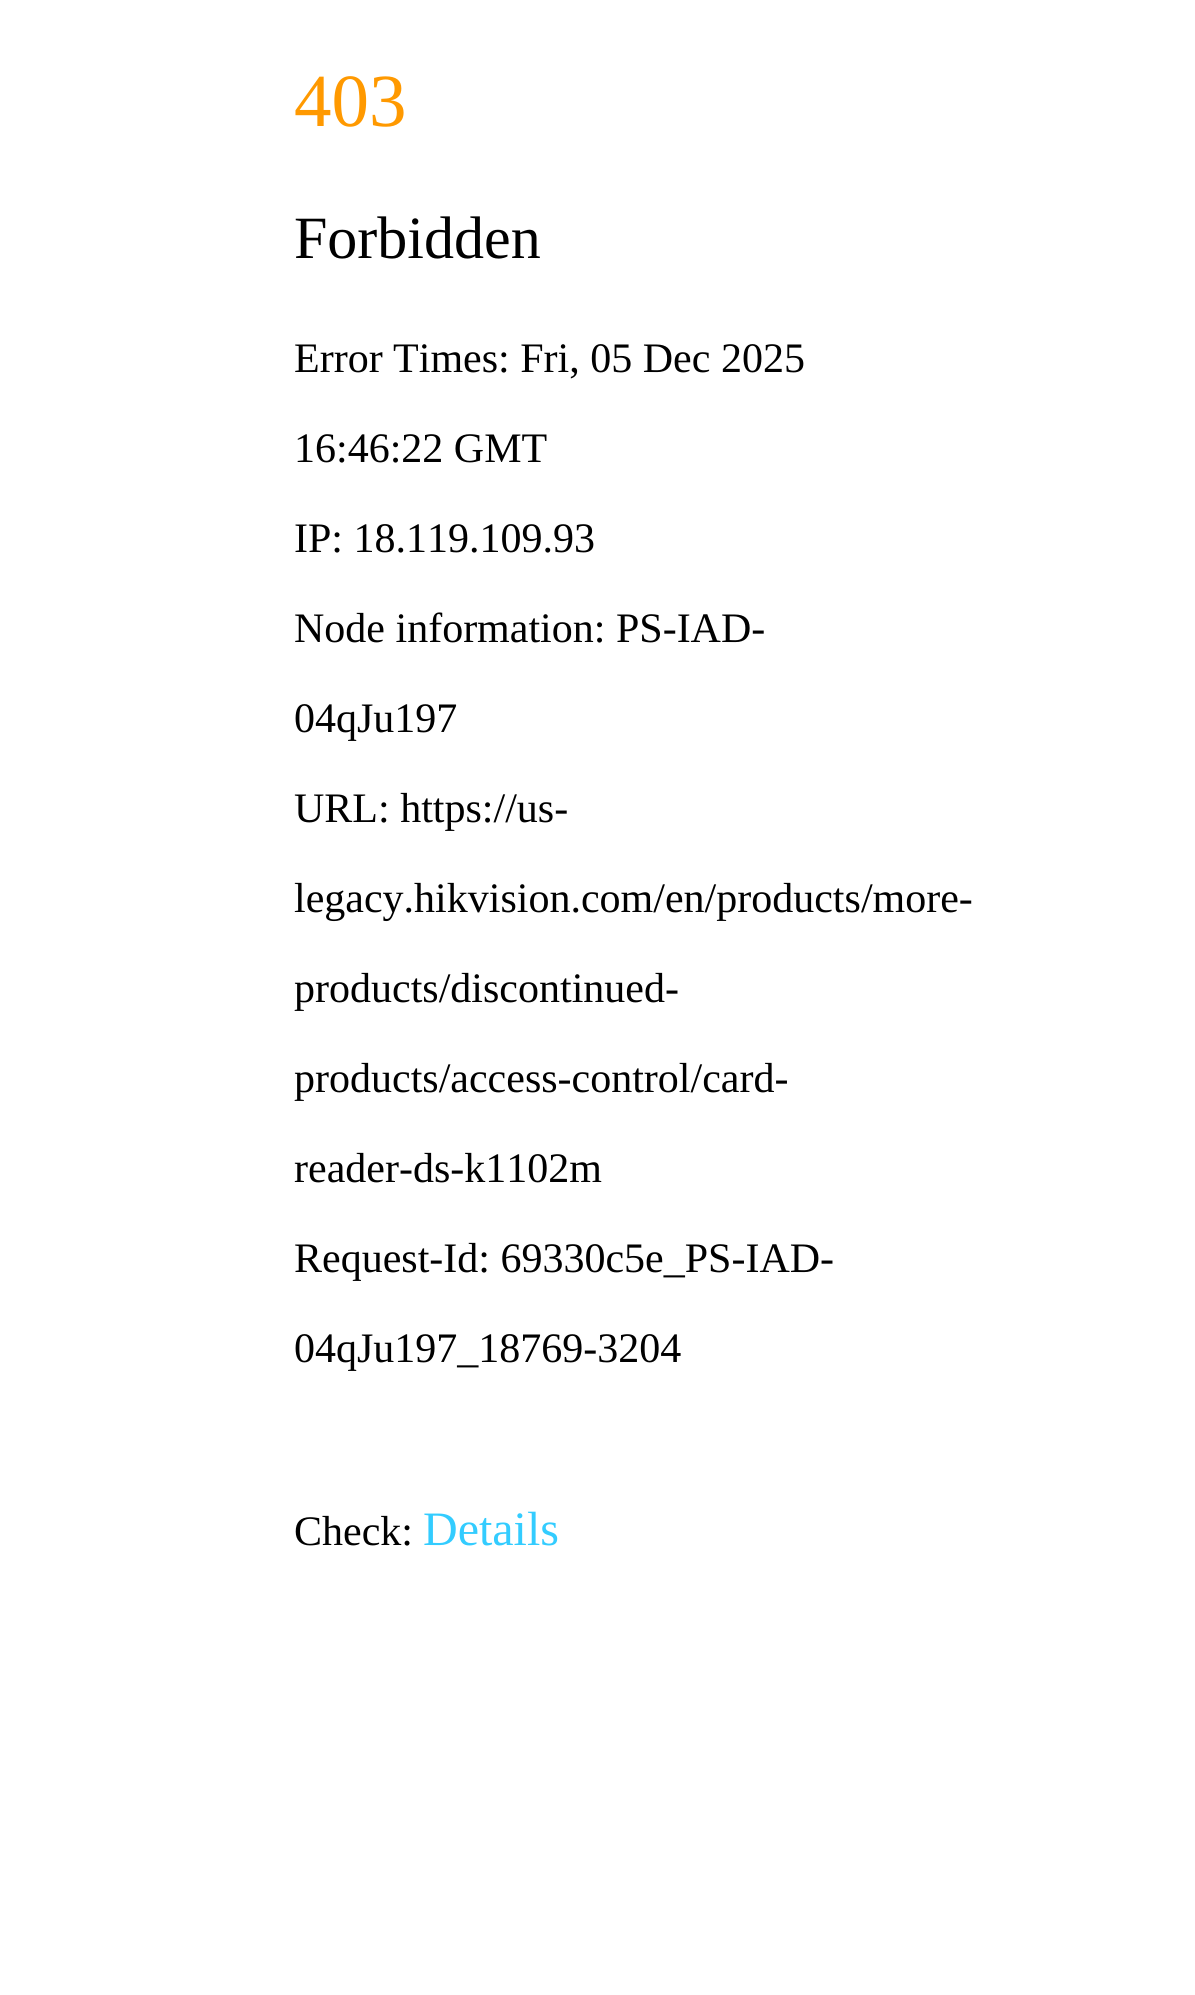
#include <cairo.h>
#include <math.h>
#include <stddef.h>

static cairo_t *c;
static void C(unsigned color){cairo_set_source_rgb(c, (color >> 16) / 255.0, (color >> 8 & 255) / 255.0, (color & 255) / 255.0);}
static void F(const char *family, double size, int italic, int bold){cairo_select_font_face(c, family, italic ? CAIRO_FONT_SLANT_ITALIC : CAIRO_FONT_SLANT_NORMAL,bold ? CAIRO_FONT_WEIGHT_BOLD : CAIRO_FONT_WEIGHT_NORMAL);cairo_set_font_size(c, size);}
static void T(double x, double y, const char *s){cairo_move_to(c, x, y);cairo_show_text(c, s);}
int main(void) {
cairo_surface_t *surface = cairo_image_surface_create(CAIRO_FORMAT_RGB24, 1195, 1995);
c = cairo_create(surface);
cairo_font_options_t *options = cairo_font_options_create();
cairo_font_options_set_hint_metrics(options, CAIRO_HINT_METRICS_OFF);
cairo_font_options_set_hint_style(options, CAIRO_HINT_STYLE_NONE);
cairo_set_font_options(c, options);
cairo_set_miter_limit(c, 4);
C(0xffffff);
cairo_paint(c);
F("Liberation Serif",75,0,0);
C(0xff9900);
T(294,126,"403");
F("Liberation Serif",60,0,0);
C(0x000000);
T(294,258,"Forbidden");
F("Liberation Serif",42,0,0);
T(294,372,"Error Times: Fri, 05 Dec 2025");
T(294,462,"16:46:22 GMT");
T(294,552,"IP: 18.119.109.93");
T(294,642,"Node information: PS-IAD-");
T(294,732,"04qJu197");
T(294,822,"URL: https://us-");
T(294,912,"legacy.hikvision.com/en/products/more-");
T(294,1002,"products/discontinued-");
T(294,1092,"products/access-control/card-");
T(294,1182,"reader-ds-k1102m");
T(294,1272,"Request-Id: 69330c5e_PS-IAD-");
T(294,1362,"04qJu197_18769-3204");
T(294,1545,"Check:");
F("Liberation Serif",48,0,0);
C(0x33ccff);
T(423,1545,"Details");
cairo_surface_write_to_png(surface, "o.png");
cairo_font_options_destroy(options);
cairo_destroy(c);
cairo_surface_destroy(surface);
return 0;
}
